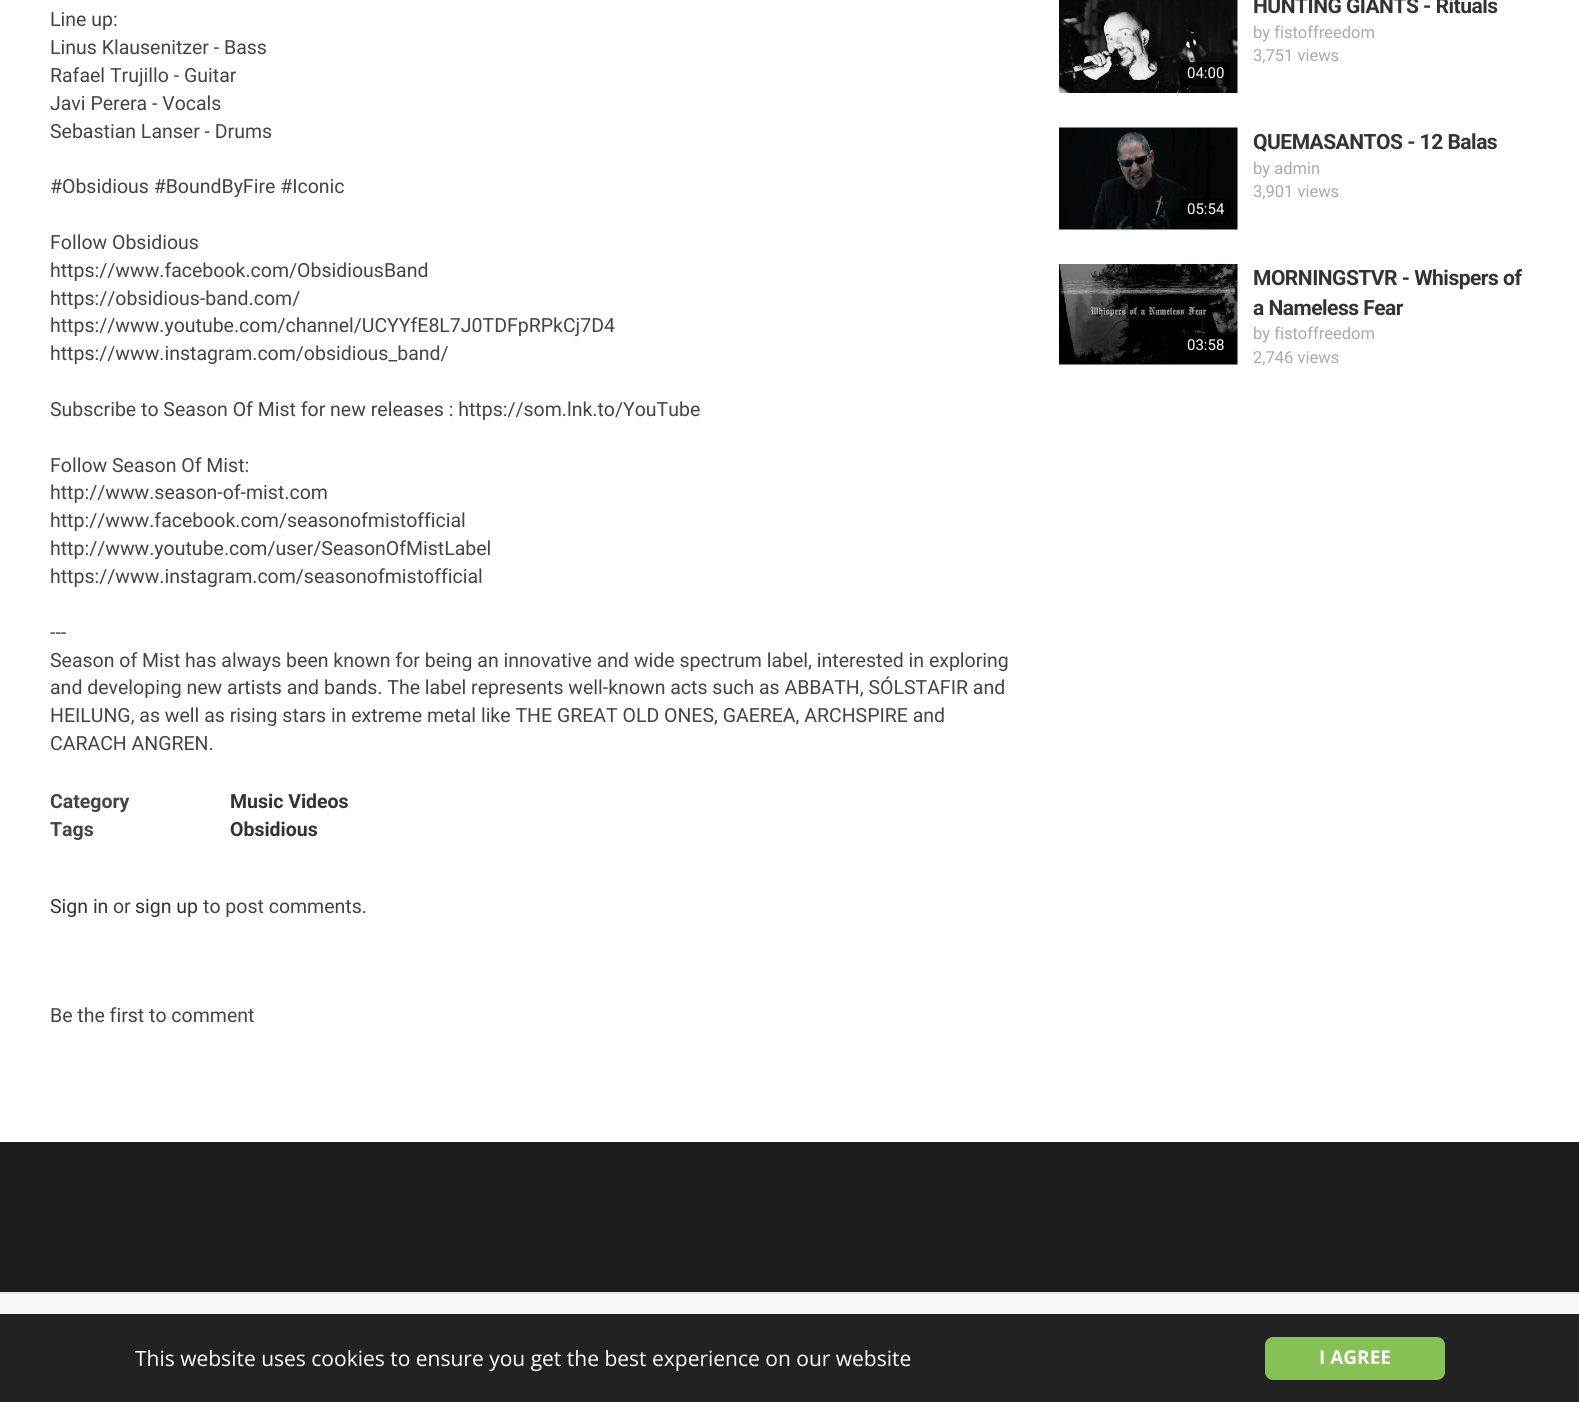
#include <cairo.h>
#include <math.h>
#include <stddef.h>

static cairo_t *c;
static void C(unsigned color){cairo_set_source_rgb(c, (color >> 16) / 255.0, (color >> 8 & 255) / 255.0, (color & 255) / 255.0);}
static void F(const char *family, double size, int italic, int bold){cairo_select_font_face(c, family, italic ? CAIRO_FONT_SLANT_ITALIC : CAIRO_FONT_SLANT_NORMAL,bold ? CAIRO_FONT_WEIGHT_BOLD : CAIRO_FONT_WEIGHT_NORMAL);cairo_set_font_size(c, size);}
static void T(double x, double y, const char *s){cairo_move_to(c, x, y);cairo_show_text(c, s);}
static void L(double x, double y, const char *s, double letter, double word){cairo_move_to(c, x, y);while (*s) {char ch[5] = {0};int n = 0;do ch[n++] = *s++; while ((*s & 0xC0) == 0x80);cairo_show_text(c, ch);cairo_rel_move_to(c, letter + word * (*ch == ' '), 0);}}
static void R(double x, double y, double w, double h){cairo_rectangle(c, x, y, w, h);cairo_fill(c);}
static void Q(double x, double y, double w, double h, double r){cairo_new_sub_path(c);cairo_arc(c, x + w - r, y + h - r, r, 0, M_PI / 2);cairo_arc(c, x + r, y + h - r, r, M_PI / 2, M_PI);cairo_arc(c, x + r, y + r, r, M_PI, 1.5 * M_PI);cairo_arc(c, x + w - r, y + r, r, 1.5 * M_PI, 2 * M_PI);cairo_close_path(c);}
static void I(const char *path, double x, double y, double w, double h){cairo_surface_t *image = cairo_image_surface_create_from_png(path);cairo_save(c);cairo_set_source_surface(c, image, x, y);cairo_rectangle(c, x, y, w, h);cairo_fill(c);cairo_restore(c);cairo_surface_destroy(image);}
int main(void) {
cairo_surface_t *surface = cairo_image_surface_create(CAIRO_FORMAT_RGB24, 1579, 1402);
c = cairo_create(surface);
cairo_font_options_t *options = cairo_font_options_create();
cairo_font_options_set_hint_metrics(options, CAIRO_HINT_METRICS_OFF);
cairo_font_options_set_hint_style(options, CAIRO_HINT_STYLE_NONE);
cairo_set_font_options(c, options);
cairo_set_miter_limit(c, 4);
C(0x1b1b1b);
cairo_paint(c);
C(0xffffff);
R(0,0,1579,1142);
F("Roboto",19.5,0,0);
C(0x444444);
T(50,26,"Line up:");
T(50,54,"Linus Klausenitzer - Bass");
T(50,82,"Rafael Trujillo - Guitar");
T(50,110,"Javi Perera - Vocals");
T(50,138,"Sebastian Lanser - Drums");
T(50,193,"#Obsidious #BoundByFire #Iconic");
T(50,249,"Follow Obsidious");
T(50,277,"https://www.facebook.com/ObsidiousBand");
T(50,305,"https://obsidious-band.com/");
T(50,332,"https://www.youtube.com/channel/UCYYfE8L7J0TDFpRPkCj7D4");
T(50,360,"https://www.instagram.com/obsidious_band/");
T(50,416,"Subscribe to Season Of Mist for new releases : https://som.lnk.to/YouTube");
T(50,472,"Follow Season Of Mist:");
T(50,499,"http://www.season-of-mist.com");
T(50,527,"http://www.facebook.com/seasonofmistofficial");
T(50,555,"http://www.youtube.com/user/SeasonOfMistLabel");
T(50,583,"https://www.instagram.com/seasonofmistofficial");
T(50,639,"---");
T(50,667,"Season of Mist has always been known for being an innovative and wide spectrum label, interested in exploring");
T(50,694,"and developing new artists and bands. The label represents well-known acts such as ABBATH, SÓLSTAFIR and");
T(50,722,"HEILUNG, as well as rising stars in extreme metal like THE GREAT OLD ONES, GAEREA, ARCHSPIRE and");
T(50,750,"CARACH ANGREN.");
F("Roboto",19.5,0,1);
T(50,808,"Category");
C(0x333333);
T(230,808,"Music Videos");
C(0x444444);
T(50,836,"Tags");
C(0x333333);
T(230,836,"Obsidious");
F("Roboto",19.5,0,0);
T(50,913,"Sign in");
C(0x444444);
T(113,913,"or");
C(0x333333);
T(135,913,"sign up");
C(0x444444);
T(203,913,"to post comments.");
T(50,1022,"Be the first to comment");
F("Roboto",21,0,1);
C(0x333333);
L(1253,13,"HUNTING GIANTS - Rituals",-.5,0);
F("Roboto",16.5,0,0);
C(0xaaaaaa);
T(1253,38,"by fistoffreedom");
T(1253,61,"3,751 views");
I("1.png",1059,0,179,93);
cairo_set_source_rgba(c,0,0,0,0.7);
Q(1181,62,49,24,3);
cairo_fill(c);
F("Roboto",15,0,0);
C(0xffffff);
T(1187,78,"04:00");
F("Roboto",21,0,1);
C(0x333333);
L(1253,149,"QUEMASANTOS - 12 Balas",-.5,0);
F("Roboto",16.5,0,0);
C(0xaaaaaa);
T(1253,174,"by admin");
T(1253,197,"3,901 views");
I("2.png",1059,127,179,103);
cairo_set_source_rgba(c,0,0,0,0.7);
Q(1181,198,49,24,3);
cairo_fill(c);
F("Roboto",15,0,0);
C(0xffffff);
T(1187,214,"05:54");
F("Roboto",21,0,1);
C(0x333333);
L(1253,285,"MORNINGSTVR - Whispers of",-.5,0);
L(1253,315,"a Nameless Fear",-.5,0);
I("3.png",1059,264,179,101);
cairo_set_source_rgba(c,0,0,0,0.7);
Q(1181,333,49,24,3);
cairo_fill(c);
F("Roboto",15,0,0);
C(0xffffff);
T(1187,350,"03:58");
F("Roboto",16.5,0,0);
C(0xaaaaaa);
T(1253,339,"by fistoffreedom");
T(1253,363,"2,746 views");
C(0xf7f7f7);
R(0,1294,1579,20);
C(0xe3e3e3);
R(0,1292,1579,2);
C(0x222222);
R(0,1314,1579,88);
F("Open Sans",21,0,0);
C(0xffffff);
T(135,1366,"This website uses cookies to ensure you get the best experience on our website");
C(0x85c154);
Q(1265,1337,180,43,8);
cairo_fill(c);
F("Open Sans",19,0,1);
C(0xffffff);
T(1319,1364,"I AGREE");
cairo_surface_write_to_png(surface, "o.png");
cairo_font_options_destroy(options);
cairo_destroy(c);
cairo_surface_destroy(surface);
return 0;
}
